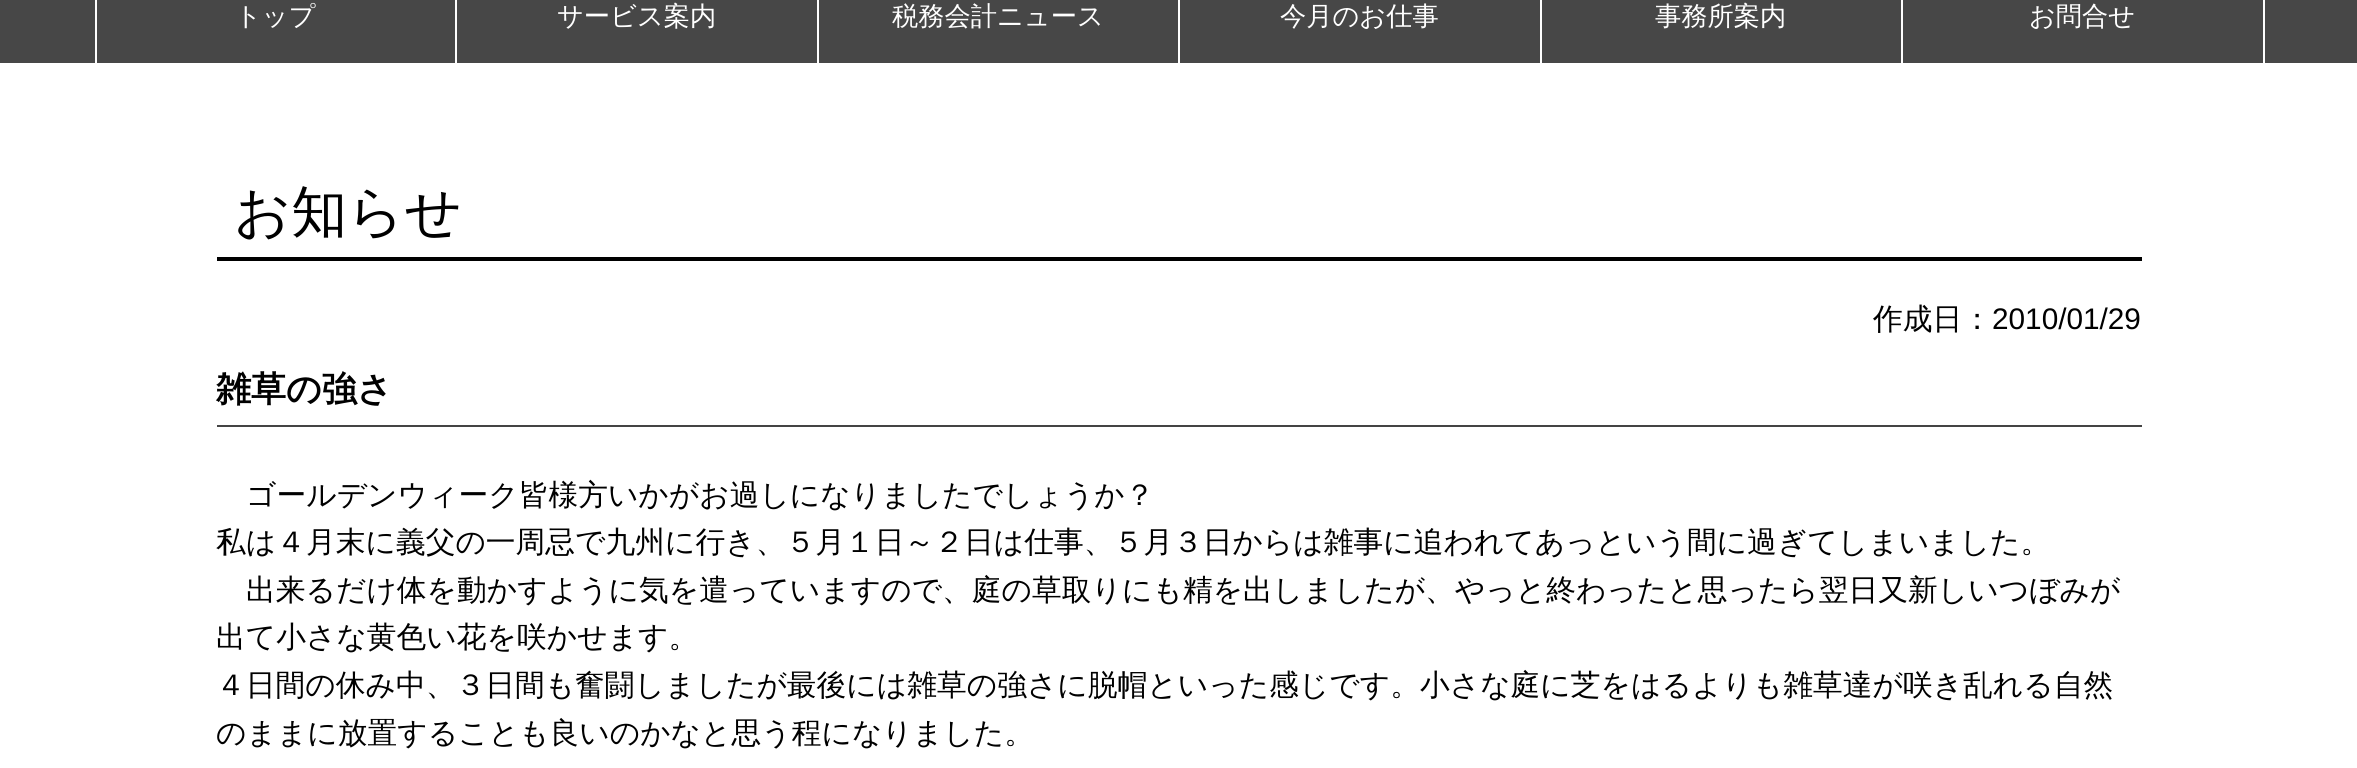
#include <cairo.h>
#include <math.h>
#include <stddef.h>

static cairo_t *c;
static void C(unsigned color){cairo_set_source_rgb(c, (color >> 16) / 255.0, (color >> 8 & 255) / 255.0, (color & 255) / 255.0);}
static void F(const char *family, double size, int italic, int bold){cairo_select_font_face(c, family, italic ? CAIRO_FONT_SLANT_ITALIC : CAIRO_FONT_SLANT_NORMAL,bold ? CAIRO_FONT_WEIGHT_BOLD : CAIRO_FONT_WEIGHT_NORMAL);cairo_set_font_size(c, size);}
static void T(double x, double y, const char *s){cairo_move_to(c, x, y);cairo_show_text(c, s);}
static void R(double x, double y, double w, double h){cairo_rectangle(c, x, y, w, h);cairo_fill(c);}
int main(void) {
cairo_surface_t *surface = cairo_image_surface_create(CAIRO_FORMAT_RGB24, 2357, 768);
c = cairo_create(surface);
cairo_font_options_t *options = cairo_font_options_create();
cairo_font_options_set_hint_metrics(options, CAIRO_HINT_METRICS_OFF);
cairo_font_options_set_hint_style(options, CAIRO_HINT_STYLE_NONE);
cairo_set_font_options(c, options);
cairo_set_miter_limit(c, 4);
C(0xffffff);
cairo_paint(c);
C(0x474747);
R(0,0,2357,63);
C(0xffffff);
R(95,0,2,65);
F("WenQuanYi Zen Hei Medium",26.25,0,0);
T(235,25,"トップ");
R(455,0,2,65);
T(557,25,"サービス案内");
R(817,0,2,65);
T(892,25,"税務会計ニュース");
R(1178,0,2,65);
T(1280,25,"今月のお仕事");
R(1540,0,2,65);
T(1655,25,"事務所案内");
R(2263,0,2,65);
R(1901,0,2,65);
T(2029,25,"お問合せ");
C(0x000000);
R(217,257,1925,4);
F("WenQuanYi Zen Hei Medium",56,0,0);
T(234,231,"お知らせ");
F("WenQuanYi Zen Hei Medium",29.75,0,0);
T(1873,329,"作成日：");
F("Liberation Sans",29.75,0,0);
T(1992,329,"2010/01/29");
C(0x444444);
R(217,425,1925,2);
F("WenQuanYi Zen Hei",35,0,1);
C(0x000000);
T(216,401,"雑草の強さ");
F("WenQuanYi Zen Hei Medium",29.75,0,0);
T(246,505,"ゴールデンウィーク皆様方いかがお過しになりましたでしょうか？");
T(216,552,"私は４月末に義父の一周忌で九州に行き、５月１日～２日は仕事、５月３日からは雑事に追われてあっという間に過ぎてしまいました。");
T(246,600,"出来るだけ体を動かすように気を遣っていますので、庭の草取りにも精を出しましたが、やっと終わったと思ったら翌日又新しいつぼみが");
T(216,647,"出て小さな黄色い花を咲かせます。");
T(216,695,"４日間の休み中、３日間も奮闘しましたが最後には雑草の強さに脱帽といった感じです。小さな庭に芝をはるよりも雑草達が咲き乱れる自然");
T(216,743,"のままに放置することも良いのかなと思う程になりました。");
cairo_surface_write_to_png(surface, "o.png");
cairo_font_options_destroy(options);
cairo_destroy(c);
cairo_surface_destroy(surface);
return 0;
}
